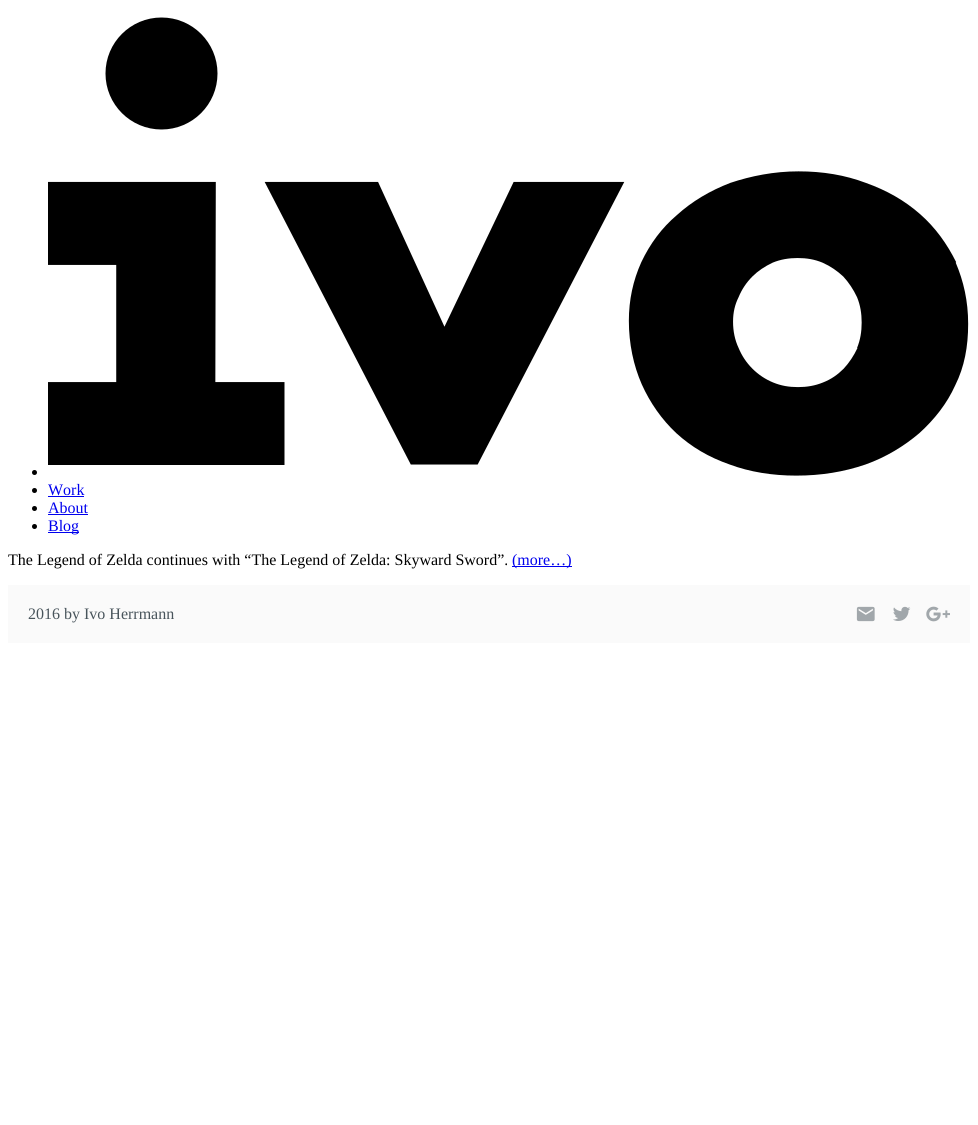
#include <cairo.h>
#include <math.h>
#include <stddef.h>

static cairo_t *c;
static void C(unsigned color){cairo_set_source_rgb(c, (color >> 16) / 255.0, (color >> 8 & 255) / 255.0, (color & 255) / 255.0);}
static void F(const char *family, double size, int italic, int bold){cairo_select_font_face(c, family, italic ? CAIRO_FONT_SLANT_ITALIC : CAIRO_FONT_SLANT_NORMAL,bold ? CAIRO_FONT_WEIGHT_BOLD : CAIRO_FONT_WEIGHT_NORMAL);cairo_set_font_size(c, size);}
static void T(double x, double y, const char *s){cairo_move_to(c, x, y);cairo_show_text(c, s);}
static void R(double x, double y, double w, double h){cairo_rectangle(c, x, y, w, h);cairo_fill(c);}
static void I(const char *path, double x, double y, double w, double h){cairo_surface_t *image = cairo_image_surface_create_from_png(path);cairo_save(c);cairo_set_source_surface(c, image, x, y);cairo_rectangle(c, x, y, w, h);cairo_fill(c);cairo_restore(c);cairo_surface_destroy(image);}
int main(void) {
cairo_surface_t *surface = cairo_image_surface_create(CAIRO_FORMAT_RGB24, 978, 1125);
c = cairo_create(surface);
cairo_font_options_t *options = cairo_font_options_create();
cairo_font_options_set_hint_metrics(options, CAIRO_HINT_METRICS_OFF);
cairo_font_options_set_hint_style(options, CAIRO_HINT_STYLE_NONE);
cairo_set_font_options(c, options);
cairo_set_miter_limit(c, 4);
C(0xffffff);
cairo_paint(c);
C(0x000000);
cairo_arc(c,34.5,472.5,2.5,0,2 * M_PI);
cairo_fill(c);
I("1.png",48,17,921,459);
cairo_arc(c,34.5,490.5,2.5,0,2 * M_PI);
cairo_fill(c);
F("Liberation Serif",16,0,0);
C(0x0000ee);
T(48,495,"Work");
R(48,496,36,1);
C(0x000000);
cairo_new_path(c);
cairo_arc(c,34.5,508.5,2.5,0,2 * M_PI);
cairo_fill(c);
C(0x0000ee);
T(48,513,"About");
R(48,514,40,1);
C(0x000000);
cairo_new_path(c);
cairo_arc(c,34.5,526.5,2.5,0,2 * M_PI);
cairo_fill(c);
C(0x0000ee);
R(48,532,31,1);
T(48,531,"Blog");
C(0x000000);
T(8,565,"The Legend of Zelda continues with “The Legend of Zelda: Skyward Sword”.");
C(0x0000ee);
R(512,566,60,1);
T(512,565,"(more…)");
C(0xfafafa);
R(8,585,962,58);
C(0x48545b);
T(28,619,"2016 by Ivo Herrmann");
I("2.png",856,606,19,16);
I("3.png",893,606,18,15);
I("4.png",926,606,24,16);
cairo_surface_write_to_png(surface, "o.png");
cairo_font_options_destroy(options);
cairo_destroy(c);
cairo_surface_destroy(surface);
return 0;
}
